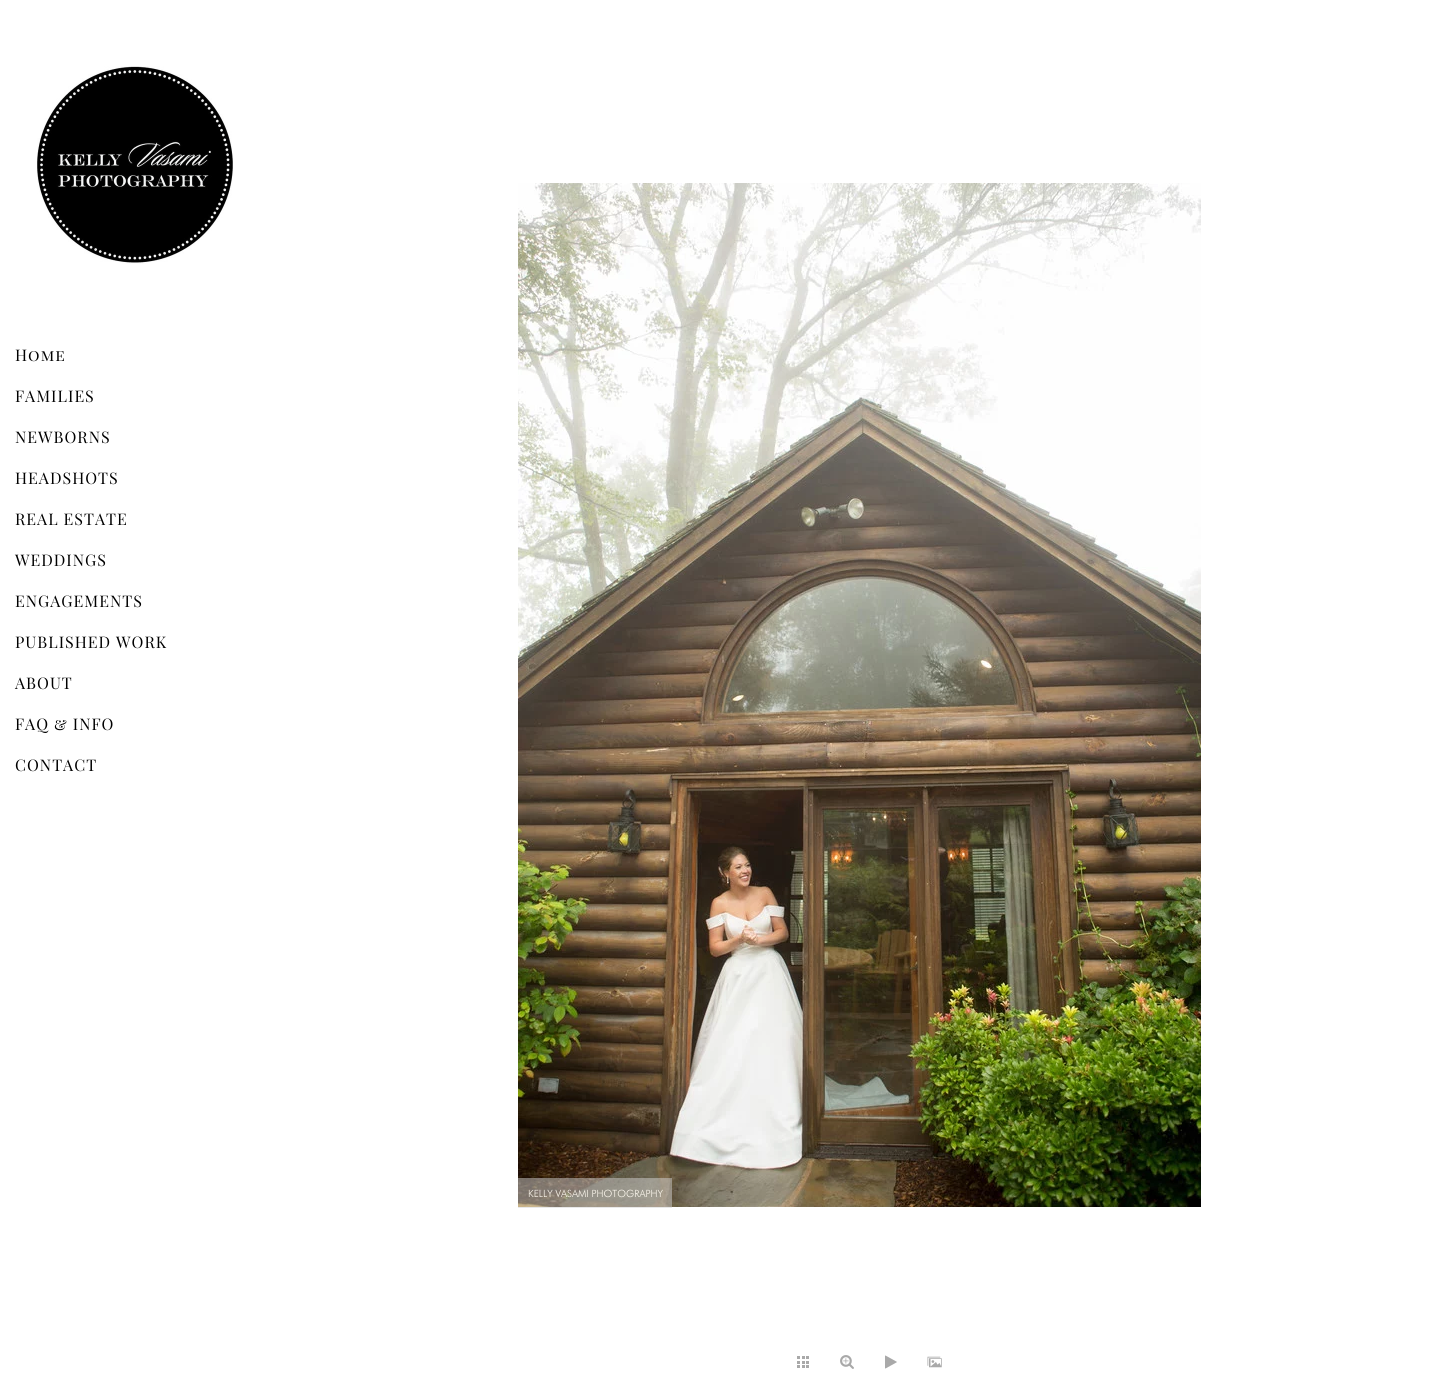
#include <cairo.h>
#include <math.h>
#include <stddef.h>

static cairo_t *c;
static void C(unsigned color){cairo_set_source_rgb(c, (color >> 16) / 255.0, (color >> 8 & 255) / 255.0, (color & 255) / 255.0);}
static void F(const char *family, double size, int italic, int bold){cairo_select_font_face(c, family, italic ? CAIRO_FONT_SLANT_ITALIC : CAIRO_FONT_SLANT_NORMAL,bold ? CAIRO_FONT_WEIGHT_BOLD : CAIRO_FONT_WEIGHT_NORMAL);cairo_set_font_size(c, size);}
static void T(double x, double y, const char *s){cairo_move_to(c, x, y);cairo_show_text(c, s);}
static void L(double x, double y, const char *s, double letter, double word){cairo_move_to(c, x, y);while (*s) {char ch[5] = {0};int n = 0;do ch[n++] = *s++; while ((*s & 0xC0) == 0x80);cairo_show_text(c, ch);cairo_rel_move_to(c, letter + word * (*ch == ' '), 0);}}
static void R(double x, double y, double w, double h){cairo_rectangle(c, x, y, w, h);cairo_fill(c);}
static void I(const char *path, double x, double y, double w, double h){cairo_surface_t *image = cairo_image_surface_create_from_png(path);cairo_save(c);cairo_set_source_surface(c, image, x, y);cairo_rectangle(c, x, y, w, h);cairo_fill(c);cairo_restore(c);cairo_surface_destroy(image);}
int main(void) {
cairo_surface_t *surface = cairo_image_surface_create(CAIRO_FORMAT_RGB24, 1447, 1389);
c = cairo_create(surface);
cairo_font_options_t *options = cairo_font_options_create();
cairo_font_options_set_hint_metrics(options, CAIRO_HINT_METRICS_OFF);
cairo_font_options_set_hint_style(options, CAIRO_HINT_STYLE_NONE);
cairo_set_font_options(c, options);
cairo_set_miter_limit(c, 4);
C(0xffffff);
cairo_paint(c);
I("1.png",37,66,196,198);
F("Playfair Display SC",16,0,0);
C(0x000000);
L(15,361,"Home",1,0);
L(15,402,"FAMILIES",1,0);
L(15,443,"NEWBORNS",1,0);
L(15,484,"HEADSHOTS",1,0);
L(15,525,"REAL ESTATE",1,0);
L(15,566,"WEDDINGS",1,0);
L(15,607,"ENGAGEMENTS",1,0);
L(15,648,"PUBLISHED WORK",1,0);
L(15,689,"ABOUT",1,0);
L(15,730,"FAQ & INFO",1,0);
L(15,771,"CONTACT",1,0);
I("2.png",518,183,683,1024);
cairo_set_source_rgba(c,0.827,0.827,0.827,0.5);
R(518,1178,154,30);
F("Futura Black",10,0,0);
C(0xfffaf0);
T(528,1197,"KELLY VASAMI PHOTOGRAPHY");
I("3.png",797,1356,12,12);
I("4.png",840,1355,14,14);
I("5.png",885,1355,12,14);
I("6.png",927,1356,15,12);
cairo_surface_write_to_png(surface, "o.png");
cairo_font_options_destroy(options);
cairo_destroy(c);
cairo_surface_destroy(surface);
return 0;
}
